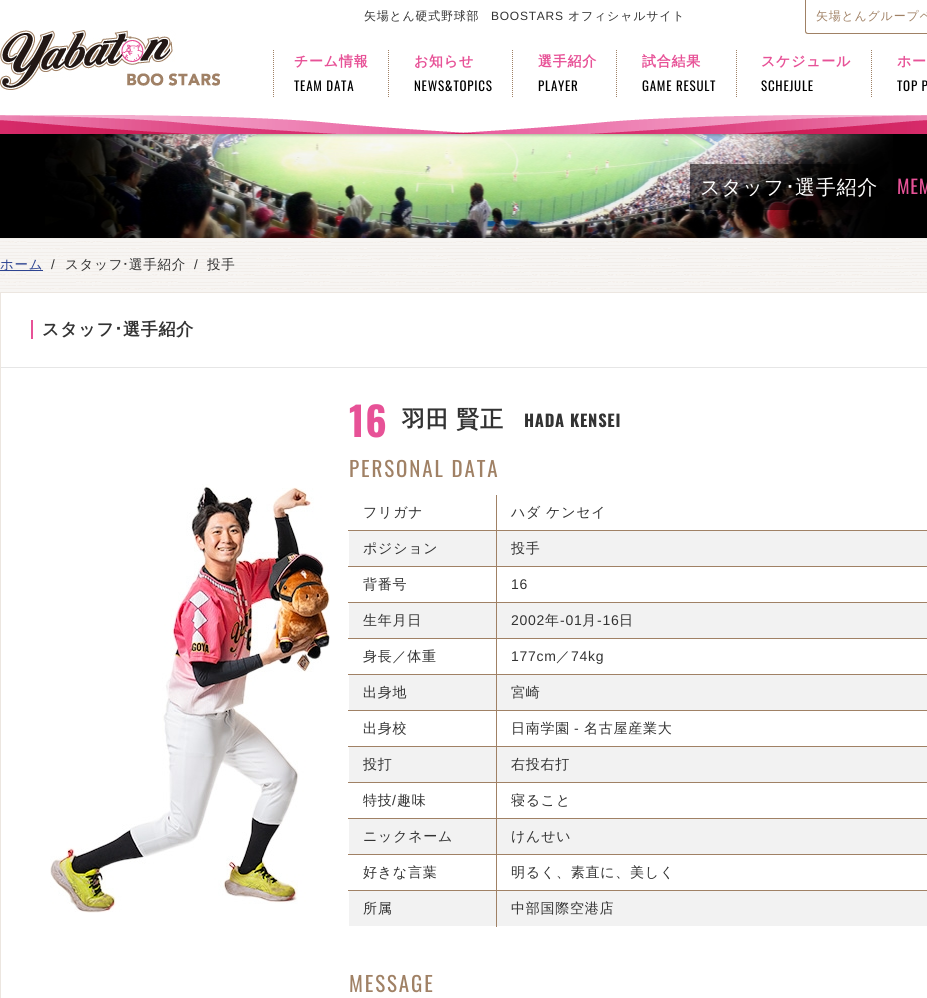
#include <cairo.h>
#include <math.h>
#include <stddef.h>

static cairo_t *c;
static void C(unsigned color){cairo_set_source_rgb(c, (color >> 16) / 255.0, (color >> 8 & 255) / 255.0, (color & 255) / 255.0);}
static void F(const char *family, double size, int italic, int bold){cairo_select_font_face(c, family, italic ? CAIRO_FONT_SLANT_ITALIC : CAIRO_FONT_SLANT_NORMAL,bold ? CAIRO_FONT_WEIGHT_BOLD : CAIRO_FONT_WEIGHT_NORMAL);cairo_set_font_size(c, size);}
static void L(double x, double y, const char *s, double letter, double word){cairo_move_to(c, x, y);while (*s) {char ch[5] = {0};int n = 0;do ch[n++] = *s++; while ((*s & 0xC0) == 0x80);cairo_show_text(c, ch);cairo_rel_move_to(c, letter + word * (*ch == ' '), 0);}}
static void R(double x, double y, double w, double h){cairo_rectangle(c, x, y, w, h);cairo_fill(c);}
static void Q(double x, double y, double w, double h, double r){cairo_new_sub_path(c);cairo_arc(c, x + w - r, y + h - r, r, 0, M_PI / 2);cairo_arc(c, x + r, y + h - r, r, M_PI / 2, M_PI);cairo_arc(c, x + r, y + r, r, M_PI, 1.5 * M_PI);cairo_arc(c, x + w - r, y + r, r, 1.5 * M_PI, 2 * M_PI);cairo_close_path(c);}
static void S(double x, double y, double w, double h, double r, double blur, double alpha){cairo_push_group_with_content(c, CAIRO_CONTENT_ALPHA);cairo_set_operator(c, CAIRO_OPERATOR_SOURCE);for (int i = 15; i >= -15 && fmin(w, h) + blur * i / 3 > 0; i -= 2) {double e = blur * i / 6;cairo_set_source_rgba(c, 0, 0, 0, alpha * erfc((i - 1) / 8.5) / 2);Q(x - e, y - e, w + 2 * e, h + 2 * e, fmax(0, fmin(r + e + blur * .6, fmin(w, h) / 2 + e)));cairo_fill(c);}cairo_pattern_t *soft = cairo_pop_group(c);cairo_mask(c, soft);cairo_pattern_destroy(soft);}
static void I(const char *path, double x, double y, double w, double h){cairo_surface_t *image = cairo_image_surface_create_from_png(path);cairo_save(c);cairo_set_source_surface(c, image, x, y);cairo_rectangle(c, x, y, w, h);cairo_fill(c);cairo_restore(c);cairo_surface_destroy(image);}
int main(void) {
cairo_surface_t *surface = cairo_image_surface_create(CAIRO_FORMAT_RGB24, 927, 998);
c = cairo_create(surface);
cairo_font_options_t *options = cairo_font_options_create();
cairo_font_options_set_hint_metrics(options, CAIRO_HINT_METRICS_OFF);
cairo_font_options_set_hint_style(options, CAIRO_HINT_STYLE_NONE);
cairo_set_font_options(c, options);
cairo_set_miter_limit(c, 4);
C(0xffffff);
cairo_paint(c);
I("1.png",0,238,927,54);
C(0x000000);
R(0,134,927,104);
I("4.png",45,134,848,104);
C(0x000000);
S(0,116,927,19,0,1.5,.3);
C(0xffffff);
R(0,113,927,2);
F("WenQuanYi Zen Hei Medium",12,0,0);
C(0x333333);
L(364,20,"矢場とん硬式野球部",.75,0);
F("Liberation Sans",12,0,0);
L(491,20,"BOOSTARS",.75,0);
F("WenQuanYi Zen Hei Medium",12,0,0);
L(568,20,"オフィシャルサイト",.75,0);
C(0xa08165);
cairo_set_fill_rule(c,CAIRO_FILL_RULE_EVEN_ODD);
cairo_new_path(c);
cairo_move_to(c,805,0);
cairo_line_to(c,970,0);
cairo_line_to(c,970,31);
cairo_curve_to(c,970,33,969,34,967,34);
cairo_line_to(c,808,34);
cairo_curve_to(c,806,34,805,33,805,31);
cairo_close_path(c);
cairo_move_to(c,806,0);
cairo_line_to(c,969,0);
cairo_line_to(c,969,31);
cairo_curve_to(c,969,32,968,33,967,33);
cairo_line_to(c,808,33);
cairo_curve_to(c,807,33,806,32,806,31);
cairo_close_path(c);
cairo_fill(c);
L(816,20,"矢場とんグループペ",.75,0);
I("2.png",0,30,220,60);
cairo_new_path(c);
cairo_move_to(c,388.5,50);
cairo_line_to(c,388.5,98);
cairo_set_line_width(c,1);
cairo_set_dash(c,(double[]){1,1},2,0);
cairo_stroke(c);
cairo_new_path(c);
cairo_move_to(c,273.5,50);
cairo_line_to(c,273.5,98);
cairo_stroke(c);
F("WenQuanYi Zen Hei",14,0,1);
C(0xe75297);
L(294,66,"チーム情報",.75,0);
F("Oswald",13,0,0);
C(0x000000);
L(294,91,"TEAM DATA",.75,0);
cairo_new_path(c);
cairo_move_to(c,512.5,50);
cairo_line_to(c,512.5,98);
C(0xa08165);
cairo_stroke(c);
F("WenQuanYi Zen Hei",14,0,1);
C(0xe75297);
L(414,66,"お知らせ",.75,0);
F("Oswald",13,0,0);
C(0x000000);
L(414,91,"NEWS&TOPICS",.75,0);
cairo_new_path(c);
cairo_move_to(c,616.5,50);
cairo_line_to(c,616.5,98);
C(0xa08165);
cairo_stroke(c);
F("WenQuanYi Zen Hei",14,0,1);
C(0xe75297);
L(538,66,"選手紹介",.75,0);
F("Oswald",13,0,0);
C(0x000000);
L(538,91,"PLAYER",.75,0);
cairo_new_path(c);
cairo_move_to(c,736.5,50);
cairo_line_to(c,736.5,98);
C(0xa08165);
cairo_stroke(c);
F("WenQuanYi Zen Hei",14,0,1);
C(0xe75297);
L(642,66,"試合結果",.75,0);
F("Oswald",13,0,0);
C(0x000000);
L(642,91,"GAME RESULT",.75,0);
cairo_new_path(c);
cairo_move_to(c,871.5,50);
cairo_line_to(c,871.5,98);
C(0xa08165);
cairo_stroke(c);
F("WenQuanYi Zen Hei",14,0,1);
C(0xe75297);
L(761,66,"スケジュール",.75,0);
F("Oswald",13,0,0);
C(0x000000);
L(761,91,"SCHEJULE",.75,0);
F("WenQuanYi Zen Hei",14,0,1);
C(0xe75297);
L(897,66,"ホー",.75,0);
F("Oswald",13,0,0);
C(0x000000);
L(897,91,"TOP P",.75,0);
I("3.png",0,115,927,19);
cairo_set_source_rgba(c,0,0,0,0.5);
R(690,164,168,46);
F("WenQuanYi Zen Hei Medium",20,0,0);
C(0xffffff);
L(700,194,"スタッフ",.75,0);
F("IPAGothic",20,0,0);
L(785,194,"･",.75,0);
F("WenQuanYi Zen Hei Medium",20,0,0);
L(795,194,"選手紹介",.75,0);
F("Oswald",19,0,0);
C(0xe75297);
L(897,194,"MEM",.75,0);
C(0x2d4491);
R(0,270,43,1);
F("WenQuanYi Zen Hei Medium",13.5,0,0);
L(0,269,"ホーム",.75,0);
F("Liberation Sans",13.5,0,0);
C(0x333333);
L(51,269,"/",.75,0);
F("WenQuanYi Zen Hei Medium",13.5,0,0);
L(65,269,"スタッフ",.75,0);
F("IPAGothic",13.5,0,0);
L(122,269,"･",.75,0);
F("WenQuanYi Zen Hei Medium",13.5,0,0);
L(129,269,"選手紹介",.75,0);
F("Liberation Sans",13.5,0,0);
L(194,269,"/",.75,0);
F("WenQuanYi Zen Hei Medium",13.5,0,0);
L(207,269,"投手",.75,0);
cairo_rectangle(c,.5,292.5,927,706);
C(0xece6e0);
cairo_set_dash(c,NULL,0,0);
cairo_stroke(c);
C(0xe6e6e6);
R(1,367,926,1);
C(0xe75297);
R(31,320,2,19);
F("WenQuanYi Zen Hei",17,0,1);
C(0x333333);
L(42,335,"スタッフ",.75,0);
F("IPAGothic",17,0,1);
L(114,335,"･",.75,0);
F("WenQuanYi Zen Hei",17,0,1);
L(123,335,"選手紹介",.75,0);
I("5.png",50,484,280,429);
F("Oswald",40,0,1);
C(0xe75297);
L(349,437,"16",.75,0);
F("WenQuanYi Zen Hei",23,0,1);
C(0x333333);
L(402,427,"羽田 賢正",.75,-1);
F("Oswald",16.5,0,1);
L(524,427,"HADA KENSEI",.75,0);
F("Oswald",21,0,0);
C(0xa08165);
L(349,477,"PERSONAL DATA",1.9,0);
F("WenQuanYi Zen Hei Medium",14,0,0);
C(0x333333);
L(363,517,"フリガナ",.75,0);
L(511,517,"ハダ ケンセイ",.75,0);
C(0xf2f2f2);
R(349,531,578,35);
C(0xa08165);
R(348,530,579,1);
C(0x333333);
L(363,553,"ポジション",.75,0);
L(511,553,"投手",.75,0);
C(0xa08165);
R(348,566,579,1);
C(0x333333);
L(363,589,"背番号",.75,0);
F("Liberation Sans",14,0,0);
L(511,589,"16",.75,0);
C(0xf2f2f2);
R(349,603,578,35);
C(0xa08165);
R(348,602,579,1);
F("WenQuanYi Zen Hei Medium",14,0,0);
C(0x333333);
L(363,625,"生年月日",.75,0);
F("Liberation Sans",14,0,0);
L(511,625,"2002",.75,0);
F("WenQuanYi Zen Hei Medium",14,0,0);
L(545,625,"年",.75,0);
F("Liberation Sans",14,0,0);
L(560,625,"-01",.75,0);
F("WenQuanYi Zen Hei Medium",14,0,0);
L(582,625,"月",.75,0);
F("Liberation Sans",14,0,0);
L(597,625,"-16",.75,0);
F("WenQuanYi Zen Hei Medium",14,0,0);
L(619,625,"日",.75,0);
C(0xa08165);
R(348,638,579,1);
C(0x333333);
L(363,661,"身長／体重",.75,0);
F("Liberation Sans",14,0,0);
L(511,661,"177cm",.75,0);
F("WenQuanYi Zen Hei Medium",14,0,0);
L(556,661,"／",.75,0);
F("Liberation Sans",14,0,0);
L(571,661,"74kg",.75,0);
C(0xf2f2f2);
R(349,675,578,35);
C(0xa08165);
R(348,674,579,1);
F("WenQuanYi Zen Hei Medium",14,0,0);
C(0x333333);
L(363,697,"出身地",.75,0);
L(511,697,"宮崎",.75,0);
C(0xa08165);
R(348,710,579,1);
C(0x333333);
L(363,733,"出身校",.75,0);
L(511,733,"日南学園",.75,0);
F("Liberation Sans",14,0,0);
L(574,733,"-",.75,0);
F("WenQuanYi Zen Hei Medium",14,0,0);
L(584,733,"名古屋産業大",.75,0);
C(0xf2f2f2);
R(349,747,578,35);
C(0xa08165);
R(348,746,579,1);
C(0x333333);
L(363,769,"投打",.75,0);
L(511,769,"右投右打",.75,0);
C(0xa08165);
R(348,782,579,1);
C(0x333333);
L(363,805,"特技",.75,0);
F("Liberation Sans",14,0,0);
L(392,805,"/",.75,0);
F("WenQuanYi Zen Hei Medium",14,0,0);
L(397,805,"趣味",.75,0);
L(511,805,"寝ること",.75,0);
C(0xf2f2f2);
R(349,819,578,35);
C(0xa08165);
R(348,818,579,1);
C(0x333333);
L(363,841,"ニックネーム",.75,0);
L(511,841,"けんせい",.75,0);
C(0xa08165);
R(348,854,579,1);
C(0x333333);
L(363,877,"好きな言葉",.75,0);
L(511,877,"明るく、素直に、美しく",.75,0);
C(0xf2f2f2);
R(349,891,578,35);
C(0xa08165);
R(348,890,579,1);
R(496,495,1,432);
C(0x333333);
L(363,913,"所属",.75,0);
L(511,913,"中部国際空港店",.75,0);
F("Oswald",21,0,0);
C(0xa08165);
L(349,992,"MESSAGE",1.9,0);
cairo_surface_write_to_png(surface, "o.png");
cairo_font_options_destroy(options);
cairo_destroy(c);
cairo_surface_destroy(surface);
return 0;
}
